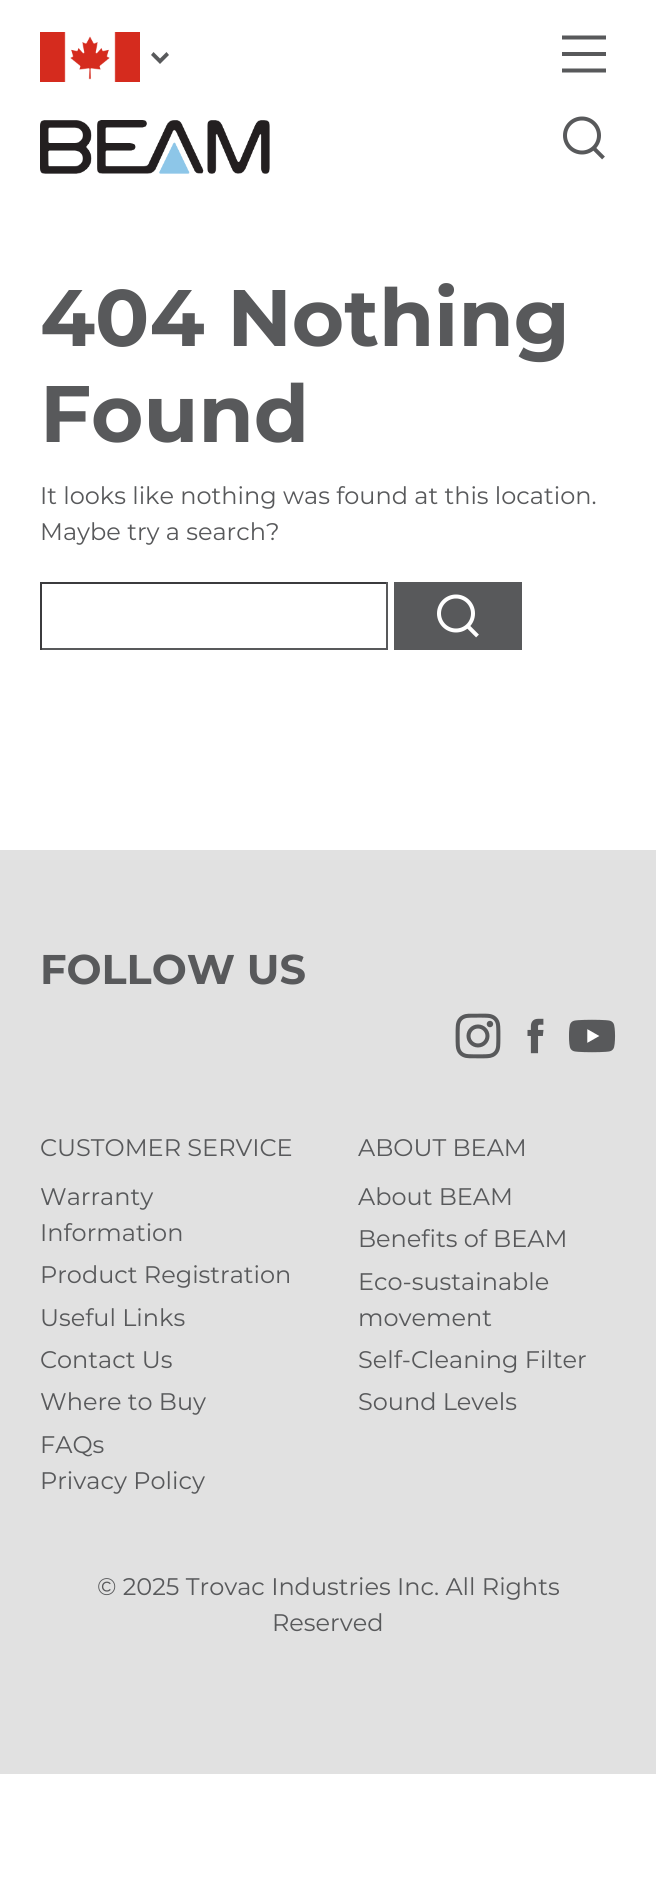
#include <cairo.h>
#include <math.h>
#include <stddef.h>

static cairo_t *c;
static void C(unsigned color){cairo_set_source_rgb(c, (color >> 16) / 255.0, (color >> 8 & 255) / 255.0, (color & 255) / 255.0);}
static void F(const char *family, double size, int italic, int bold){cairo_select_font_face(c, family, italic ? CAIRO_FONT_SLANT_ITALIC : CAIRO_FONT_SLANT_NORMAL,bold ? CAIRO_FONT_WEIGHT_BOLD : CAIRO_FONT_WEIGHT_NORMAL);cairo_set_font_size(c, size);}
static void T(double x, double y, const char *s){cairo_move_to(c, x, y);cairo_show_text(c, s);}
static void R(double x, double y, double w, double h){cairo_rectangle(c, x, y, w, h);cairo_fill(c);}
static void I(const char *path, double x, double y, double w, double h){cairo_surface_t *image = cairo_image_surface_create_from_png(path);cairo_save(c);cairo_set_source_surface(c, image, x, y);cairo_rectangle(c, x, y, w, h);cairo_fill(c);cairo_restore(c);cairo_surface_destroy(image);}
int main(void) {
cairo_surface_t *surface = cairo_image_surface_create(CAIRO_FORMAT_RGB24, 656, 1891);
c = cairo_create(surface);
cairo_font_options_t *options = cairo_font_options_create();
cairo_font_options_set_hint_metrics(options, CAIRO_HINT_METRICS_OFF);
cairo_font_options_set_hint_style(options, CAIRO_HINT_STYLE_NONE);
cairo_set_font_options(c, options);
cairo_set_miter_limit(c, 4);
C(0xffffff);
cairo_paint(c);
I("1.png",40,32,100,50);
C(0x58595b);
cairo_new_path(c);
cairo_move_to(c,160,64);
cairo_line_to(c,151,55);
cairo_line_to(c,153.5,52);
cairo_line_to(c,160,58.5);
cairo_line_to(c,166.5,52);
cairo_line_to(c,169,55);
cairo_close_path(c);
cairo_fill(c);
R(562,52,44,4);
cairo_new_path(c);
cairo_move_to(c,562,37.5);
cairo_line_to(c,606,37.5);
cairo_move_to(c,562,70.5);
cairo_line_to(c,606,70.5);
cairo_set_line_width(c,4);
cairo_stroke(c);
cairo_arc(c,582,135.5,17,0,2 * M_PI);
cairo_stroke(c);
cairo_new_path(c);
cairo_move_to(c,593.5,148);
cairo_line_to(c,603.5,158);
cairo_stroke(c);
I("2.png",40,120,230,54);
F("Montserrat",80,0,1);
T(40,346,"404 Nothing");
T(40,442,"Found");
F("Montserrat Thin",24,0,0);
T(40,504,"It looks like nothing was found at this location.");
T(40,540,"Maybe try a search?");
C(0x3b3b3d);
R(40,582,348,2);
C(0x58595b);
R(386,582,2,68);
R(40,648,348,2);
C(0x3b3b3d);
R(40,582,2,68);
C(0x58595b);
R(394,582,128,68);
cairo_new_path(c);
cairo_arc(c,456,613.5,17,0,2 * M_PI);
C(0xffffff);
cairo_stroke(c);
cairo_new_path(c);
cairo_move_to(c,467.5,626);
cairo_line_to(c,477.5,636);
cairo_stroke(c);
C(0xe1e1e1);
R(0,850,656,924);
F("Montserrat",41.5,0,1);
C(0x58595b);
T(40,984,"FOLLOW US");
I("3.png",455,1013,46,46);
I("4.png",527,1018,17,36);
I("5.png",569,1019,47,34);
F("Montserrat Thin",24,0,0);
T(40,1156,"CUSTOMER SERVICE");
T(40,1205,"Warranty");
T(40,1241,"Information");
T(40,1283,"Product Registration");
T(40,1326,"Useful Links");
T(40,1368,"Contact Us");
T(40,1410,"Where to Buy");
T(40,1453,"FAQs");
T(358,1156,"ABOUT BEAM");
T(358,1205,"About BEAM");
T(358,1247,"Benefits of BEAM");
T(358,1290,"Eco-sustainable");
T(358,1326,"movement");
T(358,1368,"Self-Cleaning Filter");
T(358,1410,"Sound Levels");
T(40,1489,"Privacy Policy");
T(97,1595,"© 2025 Trovac Industries Inc. All Rights");
T(272,1631,"Reserved");
cairo_surface_write_to_png(surface, "o.png");
cairo_font_options_destroy(options);
cairo_destroy(c);
cairo_surface_destroy(surface);
return 0;
}
